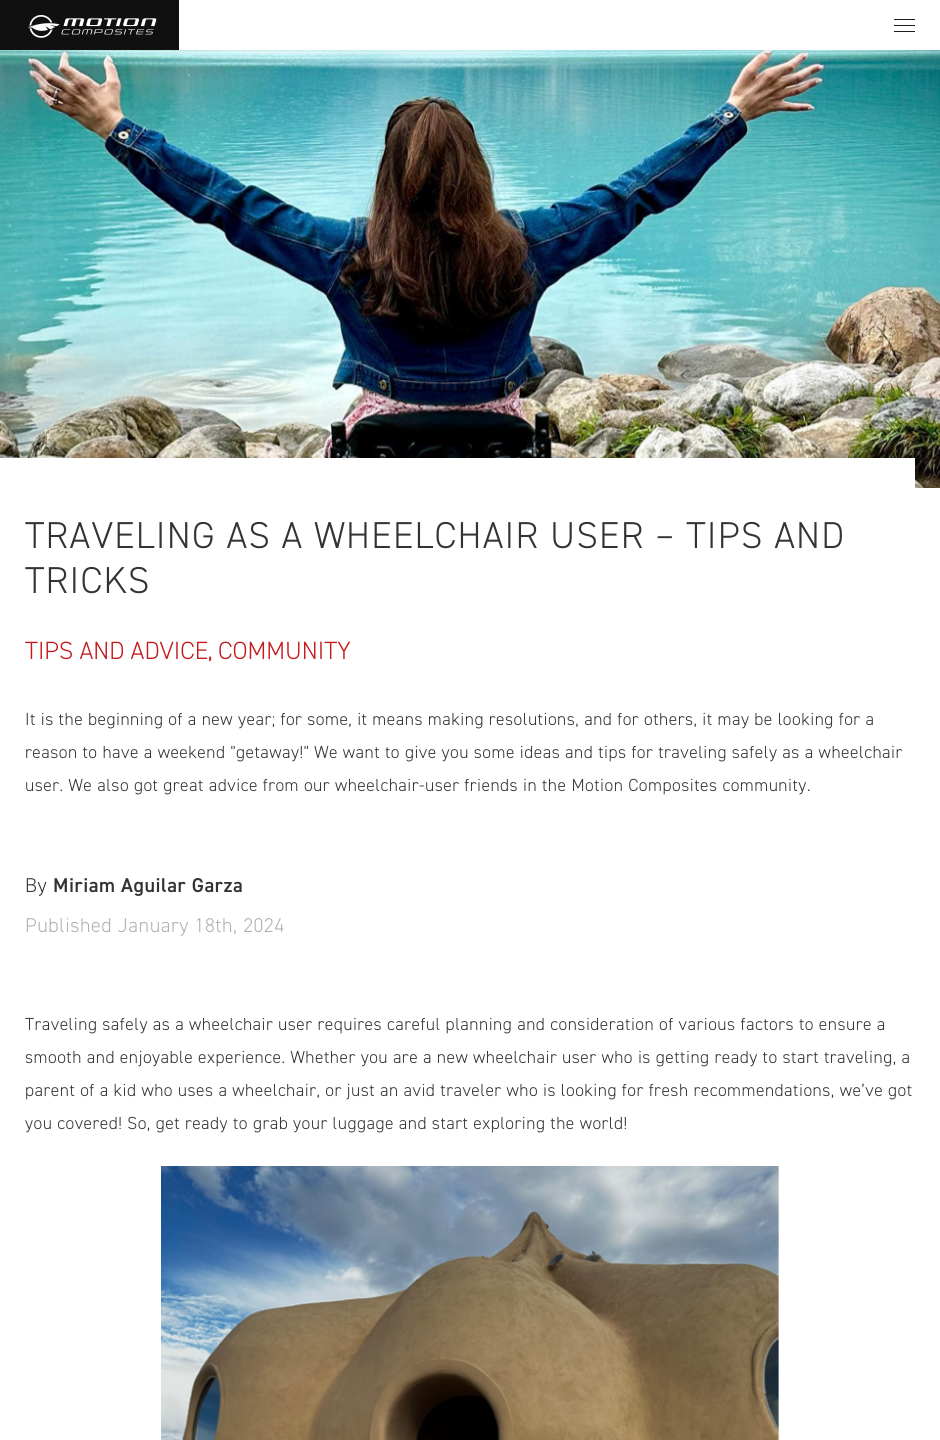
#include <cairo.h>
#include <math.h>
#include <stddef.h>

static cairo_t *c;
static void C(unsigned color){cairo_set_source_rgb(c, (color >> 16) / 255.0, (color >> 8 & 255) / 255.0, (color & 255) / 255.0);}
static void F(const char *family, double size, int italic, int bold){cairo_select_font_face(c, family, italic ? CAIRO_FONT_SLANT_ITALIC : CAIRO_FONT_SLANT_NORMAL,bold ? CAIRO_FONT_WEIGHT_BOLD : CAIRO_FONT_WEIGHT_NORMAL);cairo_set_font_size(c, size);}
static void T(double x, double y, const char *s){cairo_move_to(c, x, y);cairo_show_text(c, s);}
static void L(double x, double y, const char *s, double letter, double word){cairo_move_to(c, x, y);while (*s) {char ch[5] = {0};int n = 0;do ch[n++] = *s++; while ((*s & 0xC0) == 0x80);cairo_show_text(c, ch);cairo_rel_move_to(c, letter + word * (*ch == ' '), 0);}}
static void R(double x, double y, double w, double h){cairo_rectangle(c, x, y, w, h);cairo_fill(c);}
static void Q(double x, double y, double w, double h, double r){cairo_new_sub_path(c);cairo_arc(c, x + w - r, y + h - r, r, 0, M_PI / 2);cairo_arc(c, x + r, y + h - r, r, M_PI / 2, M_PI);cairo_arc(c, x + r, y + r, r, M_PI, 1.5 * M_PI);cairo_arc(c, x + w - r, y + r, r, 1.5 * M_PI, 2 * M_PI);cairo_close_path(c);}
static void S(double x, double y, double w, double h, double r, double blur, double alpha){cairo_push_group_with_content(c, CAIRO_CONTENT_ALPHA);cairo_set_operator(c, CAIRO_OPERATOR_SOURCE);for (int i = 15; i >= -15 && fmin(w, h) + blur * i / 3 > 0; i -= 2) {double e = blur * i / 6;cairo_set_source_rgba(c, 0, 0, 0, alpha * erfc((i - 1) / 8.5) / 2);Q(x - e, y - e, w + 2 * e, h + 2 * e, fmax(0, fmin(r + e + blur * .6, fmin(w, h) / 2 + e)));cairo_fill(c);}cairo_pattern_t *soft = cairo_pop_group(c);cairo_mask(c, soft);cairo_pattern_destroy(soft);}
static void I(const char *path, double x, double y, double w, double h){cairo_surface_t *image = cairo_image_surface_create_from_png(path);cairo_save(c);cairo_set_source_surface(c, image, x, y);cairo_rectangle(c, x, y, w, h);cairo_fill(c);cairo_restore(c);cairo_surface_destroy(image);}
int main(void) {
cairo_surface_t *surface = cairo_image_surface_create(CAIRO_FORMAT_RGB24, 940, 1440);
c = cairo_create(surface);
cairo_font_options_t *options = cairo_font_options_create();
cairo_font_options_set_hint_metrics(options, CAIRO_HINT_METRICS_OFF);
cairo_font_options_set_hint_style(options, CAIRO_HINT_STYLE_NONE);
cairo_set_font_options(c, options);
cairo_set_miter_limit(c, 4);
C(0xffffff);
cairo_paint(c);
I("2.png",0,50,940,438);
C(0x000000);
S(4,4,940,50,0,3,.05);
C(0x101010);
R(0,0,179,50);
I("1.png",27,15,130,23);
C(0xffffff);
R(179,1,761,49);
C(0x1d1d1b);
R(894,19,21,1);
R(894,25,21,1);
R(894,31,21,1);
C(0xffffff);
R(0,458,915,30);
F("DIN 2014 Light",37.5,0,0);
C(0x333333);
L(25,548,"TRAVELING AS A WHEELCHAIR USER – TIPS AND",1.25,0);
L(25,593,"TRICKS",1.25,0);
F("DIN 2014 Light",25,0,0);
C(0xc51a1b);
T(25,659,"TIPS AND ADVICE");
F("DIN 2014",20,0,0);
T(208,659,",");
F("DIN 2014 Light",25,0,0);
T(218,659,"COMMUNITY");
F("DIN 2014 Light",17.5,0,0);
C(0x333333);
L(25,725,"It is the beginning of a new year; for some, it means making resolutions, and for others, it may be looking for a",.49,0);
L(25,758,"reason to have a weekend \"getaway!\" We want to give you some ideas and tips for traveling safely as a wheelchair",.49,0);
L(25,791,"user. We also got great advice from our wheelchair-user friends in the Motion Composites community.",.49,0);
F("DIN 2014 Light",20,0,0);
L(25,892,"By",.55,0);
F("DIN 2014 SemiBold",20,0,0);
L(53,892,"Miriam Aguilar Garza",.55,0);
F("DIN 2014 Light",20,0,0);
C(0xb1b1b1);
L(25,932,"Published January 18th, 2024",.55,0);
F("DIN 2014 Light",17.5,0,0);
C(0x333333);
L(25,1030,"Traveling safely as a wheelchair user requires careful planning and consideration of various factors to ensure a",.49,0);
L(25,1063,"smooth and enjoyable experience. Whether you are a new wheelchair user who is getting ready to start traveling, a",.49,0);
L(25,1096,"parent of a kid who uses a wheelchair, or just an avid traveler who is looking for fresh recommendations, we’ve got",.49,0);
L(25,1129,"you covered! So, get ready to grab your luggage and start exploring the world!",.49,0);
I("3.png",161,1166,618,274);
cairo_surface_write_to_png(surface, "o.png");
cairo_font_options_destroy(options);
cairo_destroy(c);
cairo_surface_destroy(surface);
return 0;
}
